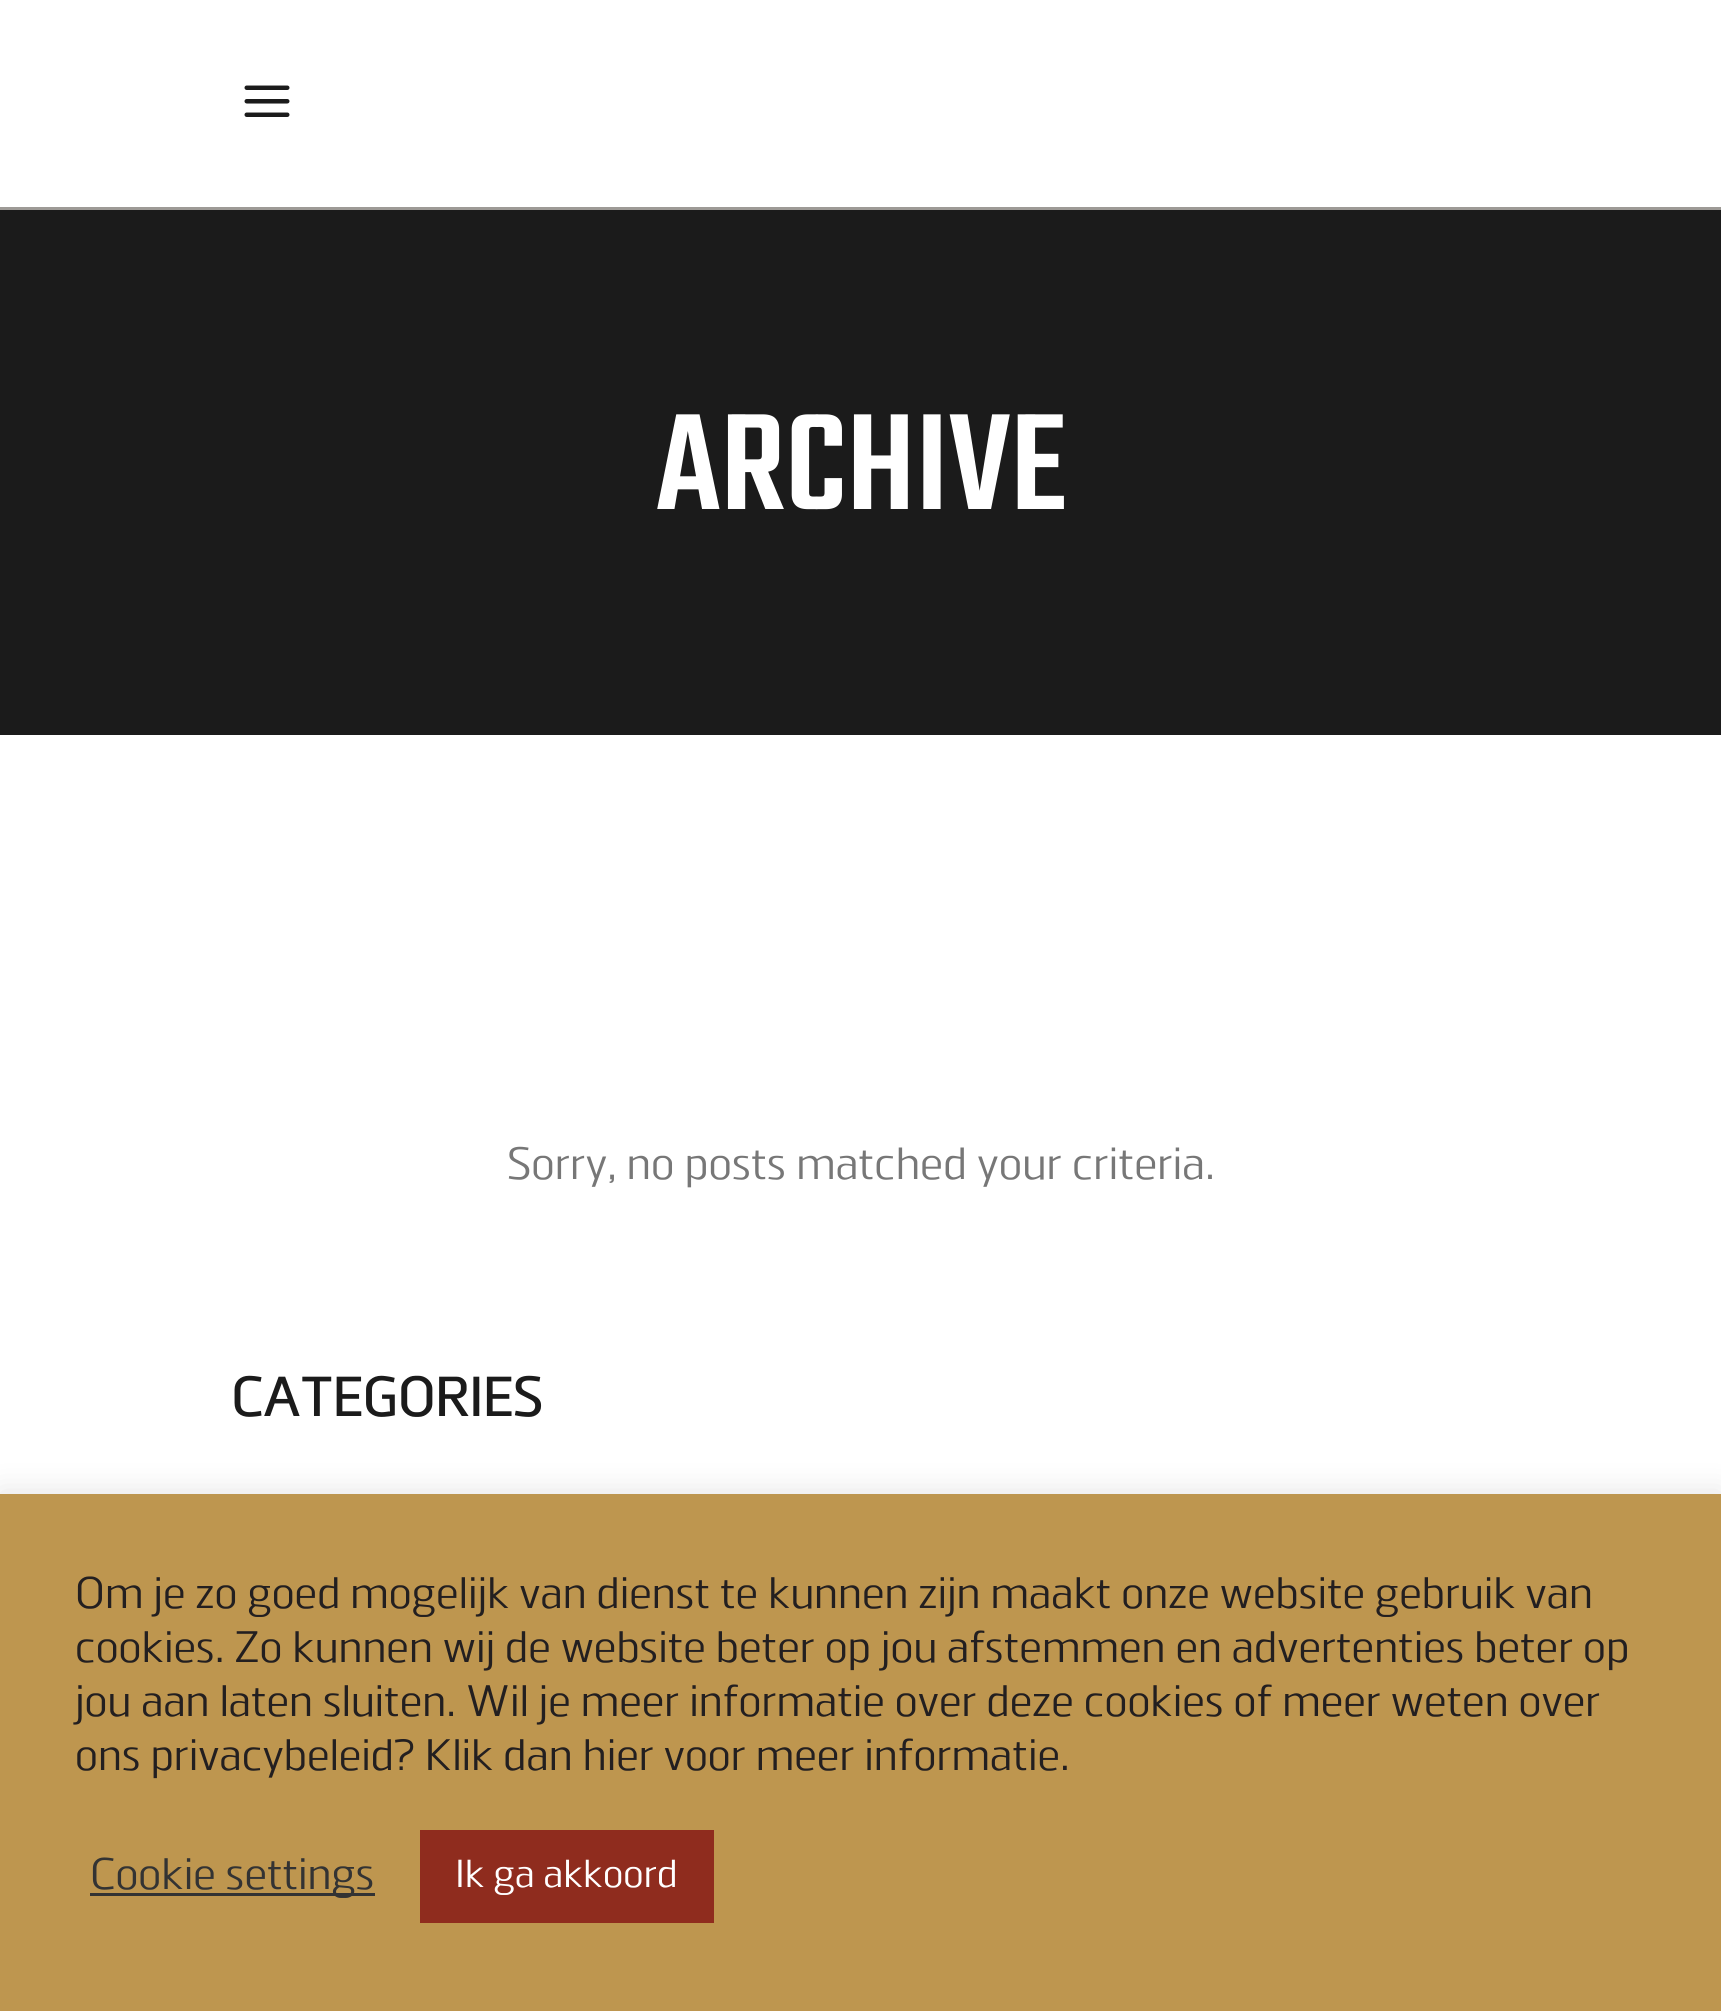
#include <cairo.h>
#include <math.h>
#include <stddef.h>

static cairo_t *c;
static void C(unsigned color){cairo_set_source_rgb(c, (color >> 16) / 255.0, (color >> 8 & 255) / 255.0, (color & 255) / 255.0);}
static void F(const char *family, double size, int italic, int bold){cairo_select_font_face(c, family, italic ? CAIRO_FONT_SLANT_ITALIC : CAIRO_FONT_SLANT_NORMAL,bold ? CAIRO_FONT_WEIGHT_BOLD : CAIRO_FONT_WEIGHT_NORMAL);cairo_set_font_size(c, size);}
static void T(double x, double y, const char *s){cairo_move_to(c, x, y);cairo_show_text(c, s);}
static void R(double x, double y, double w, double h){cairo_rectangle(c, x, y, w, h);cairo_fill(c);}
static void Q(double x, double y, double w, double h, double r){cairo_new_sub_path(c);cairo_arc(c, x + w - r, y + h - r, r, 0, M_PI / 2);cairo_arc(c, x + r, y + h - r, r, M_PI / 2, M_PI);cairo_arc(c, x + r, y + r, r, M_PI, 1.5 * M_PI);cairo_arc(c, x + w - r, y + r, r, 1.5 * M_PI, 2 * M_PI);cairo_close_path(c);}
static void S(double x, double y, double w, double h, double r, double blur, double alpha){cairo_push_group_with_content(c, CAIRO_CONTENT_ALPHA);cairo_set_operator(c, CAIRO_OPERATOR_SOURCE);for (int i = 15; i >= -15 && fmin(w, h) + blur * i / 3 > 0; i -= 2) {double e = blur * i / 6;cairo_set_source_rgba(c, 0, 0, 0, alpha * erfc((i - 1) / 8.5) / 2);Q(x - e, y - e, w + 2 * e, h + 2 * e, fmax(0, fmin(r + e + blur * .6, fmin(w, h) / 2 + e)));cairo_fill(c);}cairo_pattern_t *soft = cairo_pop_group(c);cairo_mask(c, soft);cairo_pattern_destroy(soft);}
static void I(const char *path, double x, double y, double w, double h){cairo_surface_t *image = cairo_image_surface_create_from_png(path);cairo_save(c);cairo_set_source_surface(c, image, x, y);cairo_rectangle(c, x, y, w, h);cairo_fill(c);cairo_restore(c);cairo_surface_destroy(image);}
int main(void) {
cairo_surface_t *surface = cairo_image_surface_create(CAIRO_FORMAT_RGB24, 1721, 2011);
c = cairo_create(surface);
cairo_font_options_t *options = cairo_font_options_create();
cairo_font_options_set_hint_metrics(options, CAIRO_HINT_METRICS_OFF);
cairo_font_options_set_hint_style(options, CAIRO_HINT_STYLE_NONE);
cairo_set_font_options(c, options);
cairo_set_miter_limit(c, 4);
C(0xffffff);
cairo_paint(c);
C(0x9d9a96);
R(0,207,1721,3);
I("1.png",244,85,46,32);
C(0x1b1b1b);
R(0,210,1721,525);
F("Teko Medium",150,0,0);
C(0xffffff);
T(656,509,"ARCHIVE");
F("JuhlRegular",45,0,0);
C(0x777777);
T(507,1179,"Sorry, no posts matched your criteria.");
F("JuhlRegular",54,0,1);
C(0x1b1b1b);
T(231,1416,"CATEGORIES");
C(0xacabab);
S(0,1491,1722,519,0,15,.3);
C(0xbe964f);
R(0,1494,1721,517);
F("JuhlRegular",44,0,0);
C(0x231f20);
T(75,1608,"Om je zo goed mogelijk van dienst te kunnen zijn maakt onze website gebruik van");
T(75,1662,"cookies. Zo kunnen wij de website beter op jou afstemmen en advertenties beter op");
T(75,1716,"jou aan laten sluiten. Wil je meer informatie over deze cookies of meer weten over");
T(75,1770,"ons privacybeleid? Klik dan hier voor meer informatie.");
C(0x333333);
R(90,1893,285,3);
T(90,1889,"Cookie settings");
C(0x8f2c1e);
R(420,1830,294,93);
F("JuhlRegular",39,0,0);
C(0xffffff);
T(455,1887,"Ik ga akkoord");
cairo_surface_write_to_png(surface, "o.png");
cairo_font_options_destroy(options);
cairo_destroy(c);
cairo_surface_destroy(surface);
return 0;
}
